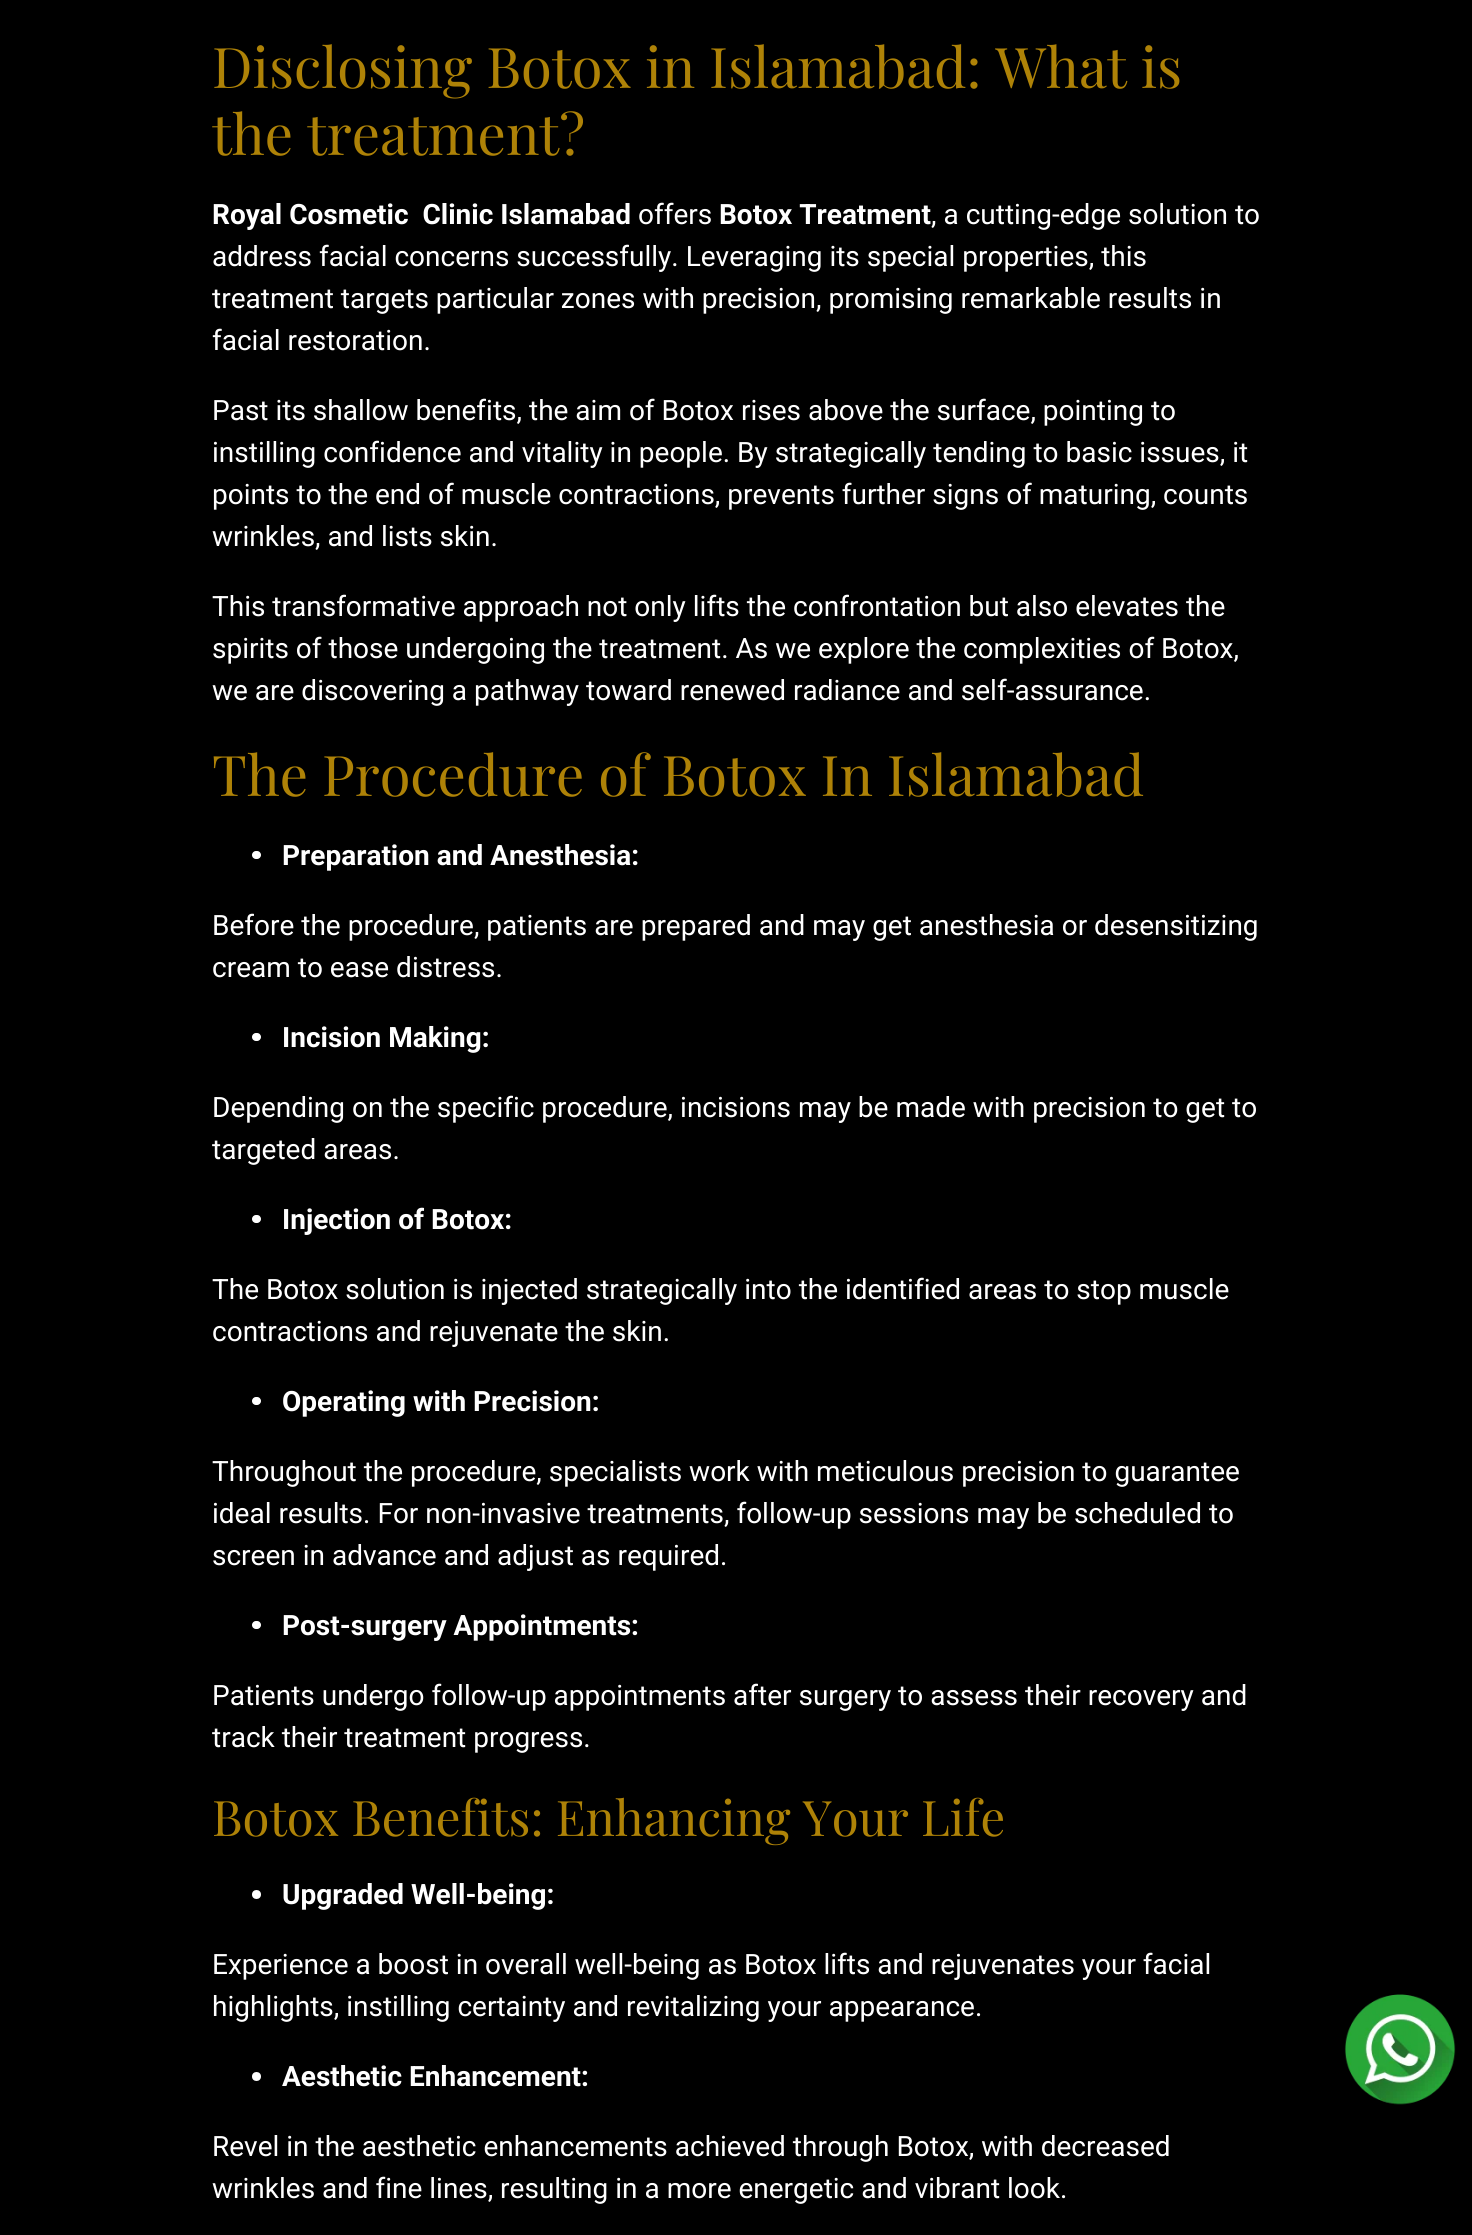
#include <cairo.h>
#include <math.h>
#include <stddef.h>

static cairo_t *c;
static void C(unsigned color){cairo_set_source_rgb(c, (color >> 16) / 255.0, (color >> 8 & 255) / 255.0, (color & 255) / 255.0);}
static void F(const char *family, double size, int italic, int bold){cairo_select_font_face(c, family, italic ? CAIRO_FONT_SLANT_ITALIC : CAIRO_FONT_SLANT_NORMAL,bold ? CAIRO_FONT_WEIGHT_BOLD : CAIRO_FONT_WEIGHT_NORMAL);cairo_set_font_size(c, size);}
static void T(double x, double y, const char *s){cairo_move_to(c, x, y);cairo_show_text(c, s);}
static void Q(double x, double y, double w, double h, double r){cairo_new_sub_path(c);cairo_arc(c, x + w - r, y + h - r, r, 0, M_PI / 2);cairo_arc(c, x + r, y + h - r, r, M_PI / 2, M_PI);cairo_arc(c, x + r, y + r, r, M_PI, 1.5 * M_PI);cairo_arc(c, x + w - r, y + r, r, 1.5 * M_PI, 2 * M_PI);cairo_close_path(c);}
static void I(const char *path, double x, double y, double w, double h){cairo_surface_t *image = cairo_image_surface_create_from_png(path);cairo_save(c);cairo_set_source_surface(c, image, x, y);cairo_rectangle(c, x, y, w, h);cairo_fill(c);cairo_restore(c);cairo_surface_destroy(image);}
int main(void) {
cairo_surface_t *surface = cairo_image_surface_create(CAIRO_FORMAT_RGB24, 1472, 2235);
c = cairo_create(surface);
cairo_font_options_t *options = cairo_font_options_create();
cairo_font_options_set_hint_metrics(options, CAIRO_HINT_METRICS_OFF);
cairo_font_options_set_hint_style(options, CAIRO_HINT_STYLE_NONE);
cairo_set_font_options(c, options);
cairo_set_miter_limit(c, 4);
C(0x000000);
cairo_paint(c);
F("Playfair Display",56,0,0);
C(0xae8207);
T(212,88,"Disclosing Botox in Islamabad: What is");
T(212,155,"the treatment?");
F("Roboto",28,0,1);
C(0xffffff);
T(212,224,"Royal Cosmetic  Clinic Islamabad");
F("Roboto",28,0,0);
T(638,224,"offers");
F("Roboto",28,0,1);
T(719,224,"Botox Treatment");
F("Roboto",28,0,0);
T(931,224,", a cutting-edge solution to");
T(212,266,"address facial concerns successfully. Leveraging its special properties, this");
T(212,308,"treatment targets particular zones with precision, promising remarkable results in");
T(212,350,"facial restoration.");
T(212,420,"Past its shallow benefits, the aim of Botox rises above the surface, pointing to");
T(212,462,"instilling confidence and vitality in people. By strategically tending to basic issues, it");
T(212,504,"points to the end of muscle contractions, prevents further signs of maturing, counts");
T(212,546,"wrinkles, and lists skin.");
T(212,616,"This transformative approach not only lifts the confrontation but also elevates the");
T(212,658,"spirits of those undergoing the treatment. As we explore the complexities of Botox,");
T(212,700,"we are discovering a pathway toward renewed radiance and self-assurance.");
F("Playfair Display",56,0,0);
C(0xae8207);
T(212,796,"The Procedure of Botox In Islamabad");
C(0xffffff);
Q(252,851,9,8,4);
cairo_fill(c);
F("Roboto",28,0,1);
T(282,865,"Preparation and Anesthesia:");
F("Roboto",28,0,0);
T(212,935,"Before the procedure, patients are prepared and may get anesthesia or desensitizing");
T(212,977,"cream to ease distress.");
Q(252,1033,9,8,4);
cairo_fill(c);
F("Roboto",28,0,1);
T(282,1047,"Incision Making:");
F("Roboto",28,0,0);
T(212,1117,"Depending on the specific procedure, incisions may be made with precision to get to");
T(212,1159,"targeted areas.");
Q(252,1215,9,8,4);
cairo_fill(c);
F("Roboto",28,0,1);
T(282,1229,"Injection of Botox:");
F("Roboto",28,0,0);
T(212,1299,"The Botox solution is injected strategically into the identified areas to stop muscle");
T(212,1341,"contractions and rejuvenate the skin.");
Q(252,1397,9,8,4);
cairo_fill(c);
F("Roboto",28,0,1);
T(282,1411,"Operating with Precision:");
F("Roboto",28,0,0);
T(212,1481,"Throughout the procedure, specialists work with meticulous precision to guarantee");
T(212,1523,"ideal results. For non-invasive treatments, follow-up sessions may be scheduled to");
T(212,1565,"screen in advance and adjust as required.");
Q(252,1621,9,8,4);
cairo_fill(c);
F("Roboto",28,0,1);
T(282,1635,"Post-surgery Appointments:");
F("Roboto",28,0,0);
T(212,1705,"Patients undergo follow-up appointments after surgery to assess their recovery and");
T(212,1747,"track their treatment progress.");
F("Playfair Display",49,0,0);
C(0xae8207);
T(212,1836,"Botox Benefits: Enhancing Your Life");
C(0xffffff);
cairo_new_path(c);
cairo_arc(c,256.5,1894.5,4.5,0,2 * M_PI);
cairo_fill(c);
F("Roboto",28,0,1);
T(282,1904,"Upgraded Well-being:");
F("Roboto",28,0,0);
T(212,1974,"Experience a boost in overall well-being as Botox lifts and rejuvenates your facial");
T(212,2016,"highlights, instilling certainty and revitalizing your appearance.");
cairo_new_path(c);
cairo_arc(c,256.5,2076.5,4.5,0,2 * M_PI);
cairo_fill(c);
F("Roboto",28,0,1);
T(282,2086,"Aesthetic Enhancement:");
F("Roboto",28,0,0);
T(212,2156,"Revel in the aesthetic enhancements achieved through Botox, with decreased");
T(212,2198,"wrinkles and fine lines, resulting in a more energetic and vibrant look.");
I("1.png",1344,1994,112,111);
cairo_surface_write_to_png(surface, "o.png");
cairo_font_options_destroy(options);
cairo_destroy(c);
cairo_surface_destroy(surface);
return 0;
}
